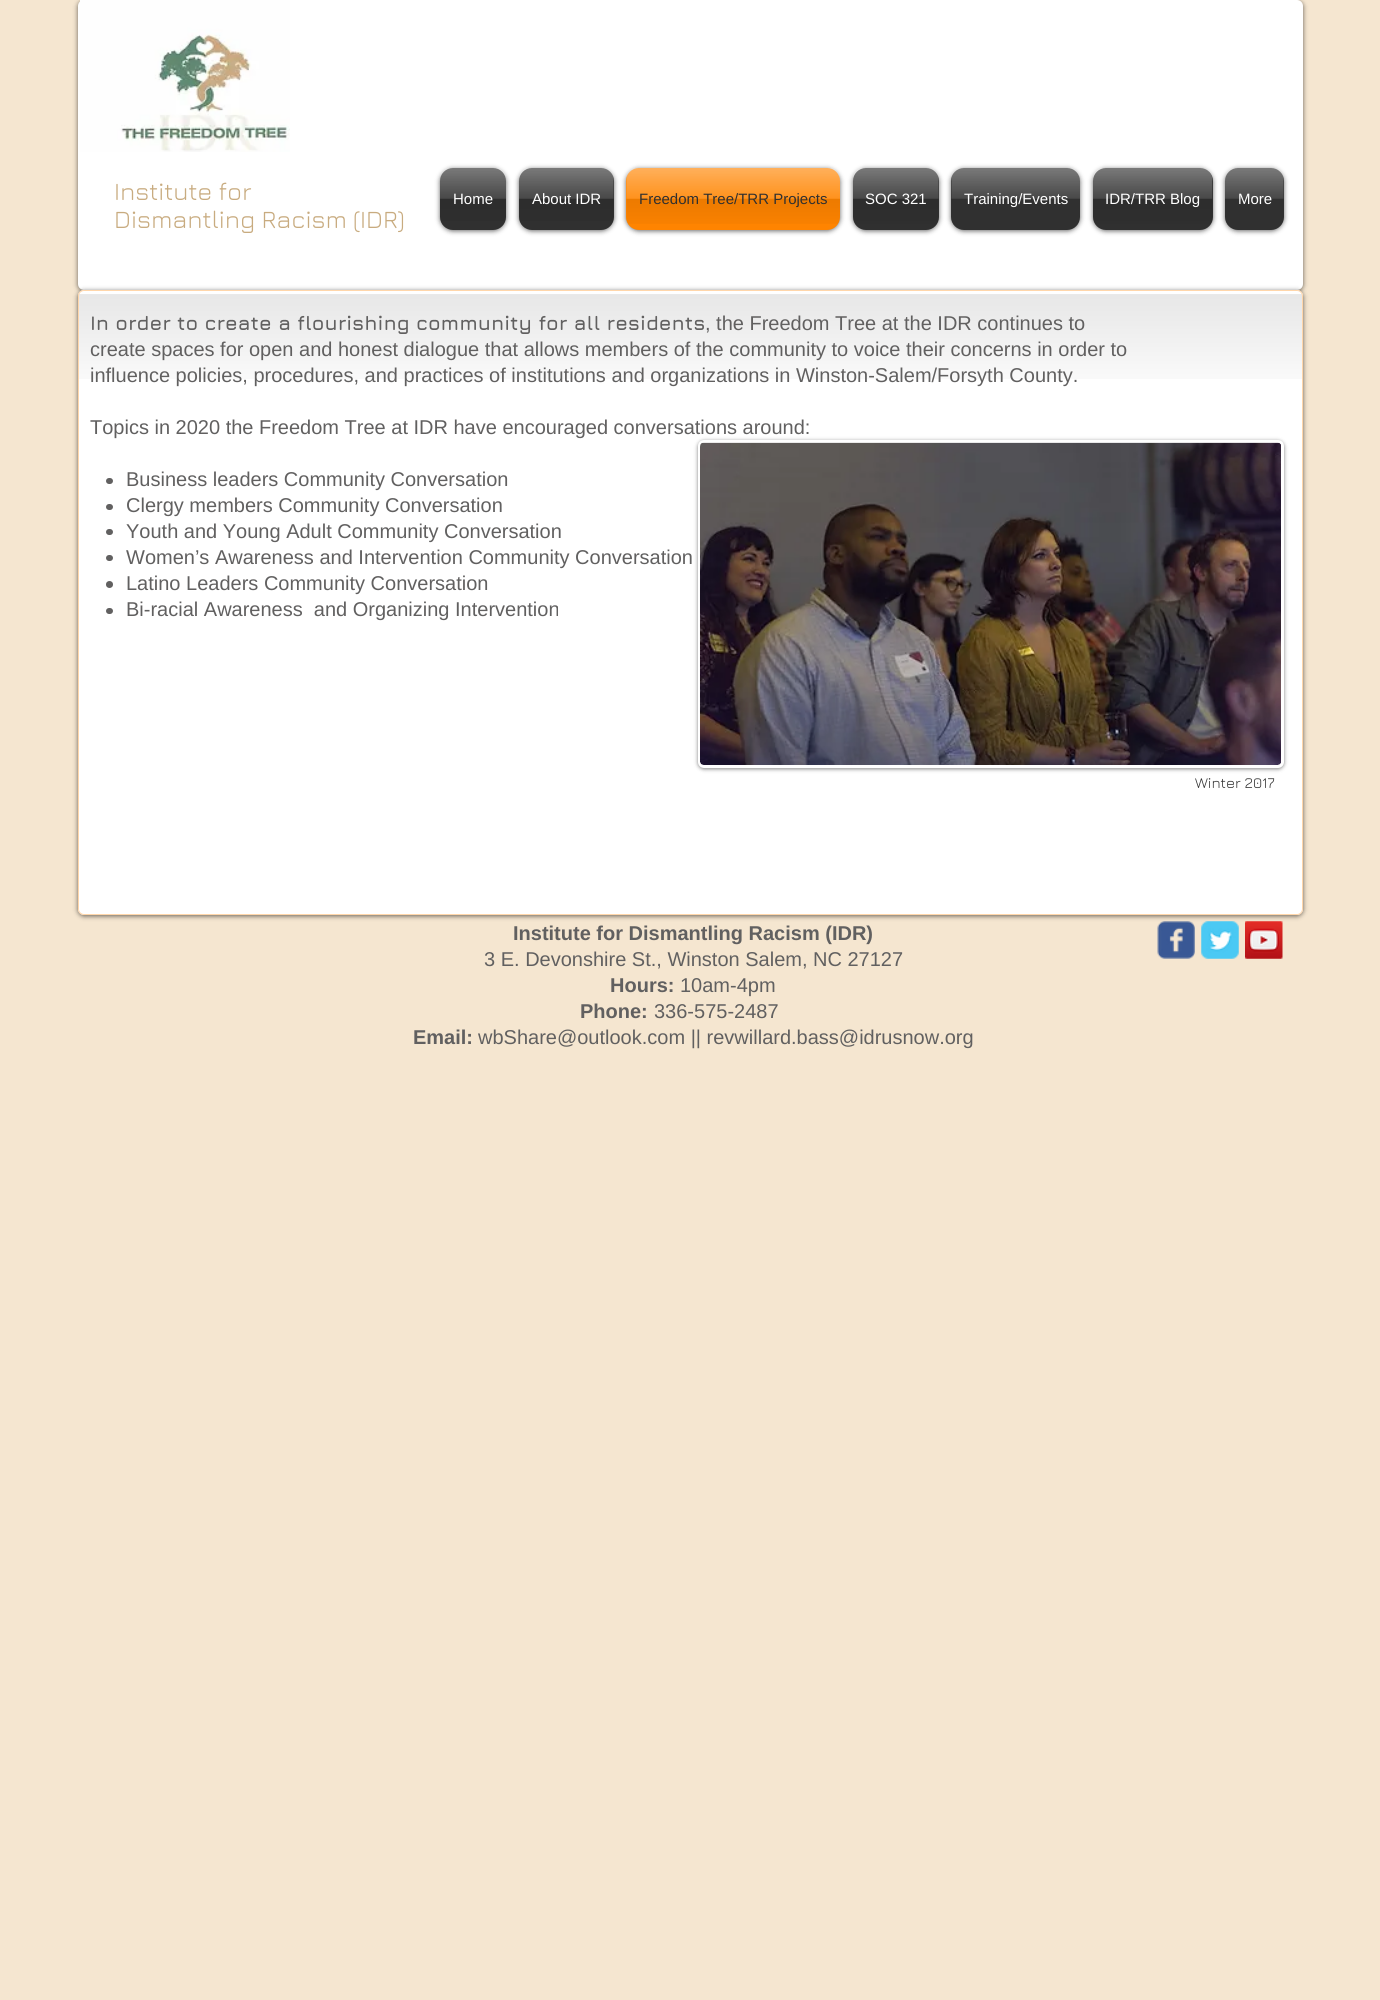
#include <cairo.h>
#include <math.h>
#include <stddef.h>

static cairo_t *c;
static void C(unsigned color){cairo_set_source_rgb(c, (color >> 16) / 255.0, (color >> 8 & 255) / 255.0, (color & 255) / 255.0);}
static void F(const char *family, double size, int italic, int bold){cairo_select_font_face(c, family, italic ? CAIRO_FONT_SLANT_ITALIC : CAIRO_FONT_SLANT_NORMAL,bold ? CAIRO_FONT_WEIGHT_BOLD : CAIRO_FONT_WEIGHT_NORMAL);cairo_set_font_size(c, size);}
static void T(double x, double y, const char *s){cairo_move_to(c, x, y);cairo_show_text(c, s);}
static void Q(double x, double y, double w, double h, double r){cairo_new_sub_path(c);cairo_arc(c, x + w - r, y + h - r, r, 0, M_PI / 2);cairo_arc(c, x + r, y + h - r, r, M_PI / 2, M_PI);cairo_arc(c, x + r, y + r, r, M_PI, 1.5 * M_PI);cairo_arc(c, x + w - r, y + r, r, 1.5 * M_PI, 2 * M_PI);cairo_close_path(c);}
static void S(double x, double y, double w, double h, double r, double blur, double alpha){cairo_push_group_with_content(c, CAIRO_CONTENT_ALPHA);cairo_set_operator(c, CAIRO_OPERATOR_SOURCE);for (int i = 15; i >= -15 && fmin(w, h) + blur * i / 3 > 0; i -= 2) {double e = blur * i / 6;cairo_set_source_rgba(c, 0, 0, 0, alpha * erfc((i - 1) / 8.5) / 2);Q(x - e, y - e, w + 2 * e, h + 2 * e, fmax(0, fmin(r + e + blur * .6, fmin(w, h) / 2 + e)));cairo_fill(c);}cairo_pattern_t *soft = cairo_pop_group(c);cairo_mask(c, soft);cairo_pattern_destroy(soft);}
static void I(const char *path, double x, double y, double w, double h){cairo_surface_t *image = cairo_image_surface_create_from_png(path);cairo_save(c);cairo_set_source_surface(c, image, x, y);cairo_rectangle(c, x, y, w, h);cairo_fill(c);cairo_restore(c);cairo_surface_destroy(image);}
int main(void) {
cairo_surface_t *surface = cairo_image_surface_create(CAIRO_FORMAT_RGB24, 1380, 2000);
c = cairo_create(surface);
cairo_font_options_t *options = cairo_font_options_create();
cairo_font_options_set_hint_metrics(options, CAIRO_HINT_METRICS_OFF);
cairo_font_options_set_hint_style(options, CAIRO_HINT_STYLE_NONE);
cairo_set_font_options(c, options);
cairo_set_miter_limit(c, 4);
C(0xf5e6d0);
cairo_paint(c);
C(0x000000);
S(78,1,1225,290,6,2.5,.6);
C(0xffffff);
Q(79.5,1.5,1222,287,4.5);
cairo_fill_preserve(c);
cairo_set_line_width(c,3);
cairo_stroke(c);
I("1.png",80,0,210,152);
F("Jura",25,0,0);
C(0xc8ab7f);
T(114,200,"Institute for");
T(114,228,"Dismantling Racism (IDR)");
C(0x000000);
S(440,169,66,62,13,2.5,.6);
C(0x303030);
Q(440,168,66,62,13);
cairo_fill(c);
I("2.png",440,168,66,53);
F("Liberation Sans",15,0,0);
C(0xffffff);
T(453,204,"Home");
C(0x000000);
S(519,169,95,62,13,2.5,.6);
C(0x303030);
Q(519,168,95,62,13);
cairo_fill(c);
I("3.png",519,168,95,53);
C(0xffffff);
T(532,204,"About IDR");
C(0x000000);
S(626,169,214,62,13,2.5,.6);
C(0xff8400);
Q(626,168,214,62,13);
cairo_fill(c);
I("4.png",626,168,214,56);
C(0x303030);
T(639,204,"Freedom Tree/TRR Projects");
C(0x000000);
S(853,169,86,62,13,2.5,.6);
C(0x303030);
Q(853,168,86,62,13);
cairo_fill(c);
I("5.png",853,168,86,56);
C(0xffffff);
T(865,204,"SOC 321");
C(0x000000);
S(951,169,129,62,13,2.5,.6);
C(0x303030);
Q(951,168,129,62,13);
cairo_fill(c);
I("6.png",951,168,129,31);
C(0xffffff);
T(964,204,"Training/Events");
C(0x000000);
S(1093,169,120,62,13,2.5,.6);
C(0x303030);
Q(1093,168,120,62,13);
cairo_fill(c);
I("7.png",1093,168,120,56);
C(0xffffff);
T(1105,204,"IDR/TRR Blog");
C(0x000000);
S(1225,169,59,62,13,2.5,.6);
C(0x303030);
Q(1225,168,59,62,13);
cairo_fill(c);
I("8.png",1225,168,59,31);
C(0xffffff);
T(1238,204,"More");
C(0x000000);
S(78,291,1225,625,6,2.5,.6);
C(0xffffff);
Q(78,290,1225,625,6);
cairo_fill(c);
I("9.png",77,294,1225,85);
Q(78.5,290.5,1224,624,5.5);
C(0xffd6aa);
cairo_set_line_width(c,1);
cairo_stroke(c);
F("Jura",20,0,1);
C(0x616060);
T(90,330,"In order to create a flourishing community for all residents");
F("Liberation Sans",20,0,0);
T(705,330,", the Freedom Tree at the IDR continues to");
T(90,356,"create spaces for open and honest dialogue that allows members of the community to voice their concerns in order to");
T(90,382,"influence policies, procedures, and practices of institutions and organizations in Winston-Salem/Forsyth County.");
T(90,434,"Topics in 2020 the Freedom Tree at IDR have encouraged conversations around:");
Q(106,478,7,6,3);
cairo_fill(c);
T(126,486,"Business leaders Community Conversation");
Q(106,504,7,6,3);
cairo_fill(c);
T(126,512,"Clergy members Community Conversation");
Q(106,529,7,6,3);
cairo_fill(c);
T(126,538,"Youth and Young Adult Community Conversation");
Q(106,555,7,6,3);
cairo_fill(c);
T(126,564,"Women’s Awareness and Intervention Community Conversation");
cairo_new_path(c);
cairo_arc(c,109.5,584.5,3.5,0,2 * M_PI);
cairo_fill(c);
T(126,590,"Latino Leaders Community Conversation");
Q(106,608,7,6,3);
cairo_fill(c);
T(126,616,"Bi-racial Awareness  and Organizing Intervention");
C(0x000000);
S(698,441,586,328,6,2,.5);
C(0xffffff);
Q(699.5,441.5,583,325,4.5);
cairo_fill_preserve(c);
cairo_set_line_width(c,3);
cairo_stroke(c);
I("10.png",700,442,581,323);
F("Jura",15,0,0);
C(0x303030);
T(1195,788,"Winter 2017");
F("Liberation Sans",20,0,1);
C(0x616060);
T(513,940,"Institute for Dismantling Racism (IDR)");
F("Liberation Sans",20,0,0);
T(484,966,"3 E. Devonshire St., Winston Salem, NC 27127");
F("Liberation Sans",20,0,1);
T(610,992,"Hours:");
F("Liberation Sans",20,0,0);
T(680,992,"10am-4pm");
F("Liberation Sans",20,0,1);
T(580,1018,"Phone:");
F("Liberation Sans",20,0,0);
T(654,1018,"336-575-2487");
F("Liberation Sans",20,0,1);
T(413,1044,"Email:");
F("Liberation Sans",20,0,0);
T(478,1044,"wbShare@outlook.com || revwillard.bass@idrusnow.org");
I("11.png",1157,921,38,38);
I("12.png",1201,921,38,38);
I("13.png",1245,921,38,38);
cairo_surface_write_to_png(surface, "o.png");
cairo_font_options_destroy(options);
cairo_destroy(c);
cairo_surface_destroy(surface);
return 0;
}
